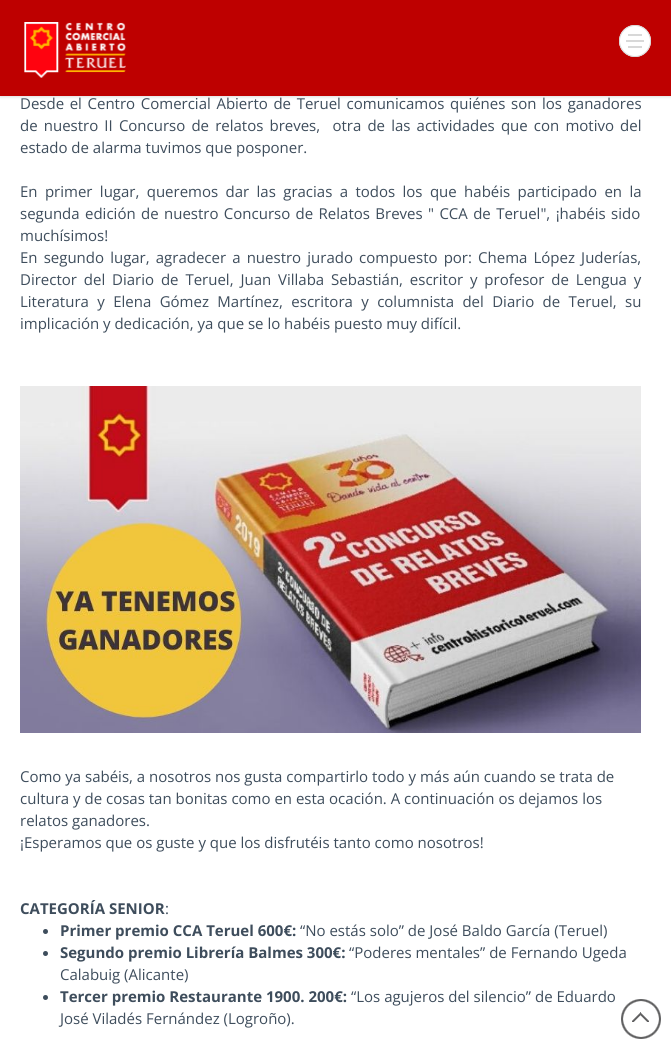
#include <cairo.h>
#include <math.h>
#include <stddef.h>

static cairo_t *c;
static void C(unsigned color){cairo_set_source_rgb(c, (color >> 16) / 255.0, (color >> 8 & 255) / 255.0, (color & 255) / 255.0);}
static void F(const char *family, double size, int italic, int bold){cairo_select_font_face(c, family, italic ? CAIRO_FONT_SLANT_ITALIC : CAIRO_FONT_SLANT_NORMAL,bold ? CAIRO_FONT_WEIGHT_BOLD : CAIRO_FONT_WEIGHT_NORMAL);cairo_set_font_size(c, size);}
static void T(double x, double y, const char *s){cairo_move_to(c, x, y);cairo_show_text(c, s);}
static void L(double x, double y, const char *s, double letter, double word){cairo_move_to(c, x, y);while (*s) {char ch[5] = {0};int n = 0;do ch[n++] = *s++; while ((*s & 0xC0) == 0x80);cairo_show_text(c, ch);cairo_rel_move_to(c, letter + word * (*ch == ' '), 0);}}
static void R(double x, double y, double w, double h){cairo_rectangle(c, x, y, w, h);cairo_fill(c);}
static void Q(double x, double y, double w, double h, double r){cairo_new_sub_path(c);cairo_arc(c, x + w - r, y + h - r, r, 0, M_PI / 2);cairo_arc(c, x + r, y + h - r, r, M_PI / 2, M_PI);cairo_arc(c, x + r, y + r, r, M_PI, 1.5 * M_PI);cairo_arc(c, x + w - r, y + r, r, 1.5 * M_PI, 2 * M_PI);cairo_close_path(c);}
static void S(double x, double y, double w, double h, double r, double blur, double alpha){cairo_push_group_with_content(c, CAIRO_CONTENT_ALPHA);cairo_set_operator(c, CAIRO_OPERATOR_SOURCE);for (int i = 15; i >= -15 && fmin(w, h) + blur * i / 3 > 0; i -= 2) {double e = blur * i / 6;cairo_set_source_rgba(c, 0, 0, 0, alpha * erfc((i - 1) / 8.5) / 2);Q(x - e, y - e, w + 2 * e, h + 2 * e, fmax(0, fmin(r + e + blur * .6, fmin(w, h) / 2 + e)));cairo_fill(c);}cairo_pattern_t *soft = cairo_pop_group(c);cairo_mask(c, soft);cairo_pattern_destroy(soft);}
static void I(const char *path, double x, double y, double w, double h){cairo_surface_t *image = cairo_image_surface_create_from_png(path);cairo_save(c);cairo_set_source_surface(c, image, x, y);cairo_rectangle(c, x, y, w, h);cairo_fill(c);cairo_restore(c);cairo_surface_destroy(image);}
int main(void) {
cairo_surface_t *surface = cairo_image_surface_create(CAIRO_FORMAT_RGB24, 671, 1049);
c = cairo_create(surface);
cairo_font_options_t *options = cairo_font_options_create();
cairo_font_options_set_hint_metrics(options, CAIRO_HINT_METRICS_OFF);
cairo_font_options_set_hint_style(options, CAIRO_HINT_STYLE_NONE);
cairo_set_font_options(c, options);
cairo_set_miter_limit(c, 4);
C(0xffffff);
cairo_paint(c);
C(0xdddddd);
S(0,1,671,96,0,1.5,1);
C(0xbe0000);
R(0,0,671,96);
I("1.png",24,22,102,56);
C(0xffffff);
cairo_arc(c,635,41,16,0,2 * M_PI);
cairo_fill(c);
I("2.png",626,34,18,14);
cairo_arc(c,635,41,15.5,0,2 * M_PI);
C(0xd8d8d8);
cairo_set_line_width(c,1);
cairo_stroke(c);
F("Open Sans",15,0,0);
C(0x3e4d5c);
L(20,109,"Desde el Centro Comercial Abierto de Teruel comunicamos quiénes son los ganadores",0,1.75);
L(20,131,"de nuestro II Concurso de relatos breves,  otra de las actividades que con motivo del",0,2.25);
T(20,153,"estado de alarma tuvimos que posponer.");
L(20,197,"En primer lugar, queremos dar las gracias a todos los que habéis participado en la",0,3.5);
L(20,219,"segunda edición de nuestro Concurso de Relatos Breves \" CCA de Teruel\", ¡habéis sido",0,1.5);
T(20,241,"muchísimos!");
L(20,263,"En segundo lugar, agradecer a nuestro jurado compuesto por: Chema López Juderías,",0,2.25);
L(20,285,"Director del Diario de Teruel, Juan Villaba Sebastián, escritor y profesor de Lengua y",0,3);
L(20,307,"Literatura y Elena Gómez Martínez, escritora y columnista del Diario de Teruel, su",0,4.5);
T(20,329,"implicación y dedicación, ya que se lo habéis puesto muy difícil.");
I("3.png",20,386,621,347);
T(20,782,"Como ya sabéis, a nosotros nos gusta compartirlo todo y más aún cuando se trata de");
T(20,804,"cultura y de cosas tan bonitas como en esta ocación. A continuación os dejamos los");
T(20,826,"relatos ganadores.");
T(20,848,"¡Esperamos que os guste y que los disfrutéis tanto como nosotros!");
F("Open Sans",15,0,1);
T(20,914,"CATEGORÍA SENIOR");
F("Open Sans",15,0,0);
T(165,914,":");
cairo_new_path(c);
cairo_arc(c,45.5,931.5,2.5,0,2 * M_PI);
cairo_fill(c);
F("Open Sans",15,0,1);
T(60,936,"Primer premio CCA Teruel 600€:");
F("Open Sans",15,0,0);
T(300,936,"“No estás solo” de José Baldo García (Teruel)");
cairo_new_path(c);
cairo_arc(c,45.5,953.5,2.5,0,2 * M_PI);
cairo_fill(c);
F("Open Sans",15,0,1);
T(60,958,"Segundo premio Librería Balmes 300€:");
F("Open Sans",15,0,0);
T(349,958,"“Poderes mentales” de Fernando Ugeda");
T(60,980,"Calabuig (Alicante)");
cairo_new_path(c);
cairo_arc(c,45.5,997.5,2.5,0,2 * M_PI);
cairo_fill(c);
F("Open Sans",15,0,1);
T(60,1002,"Tercer premio Restaurante 1900. 200€:");
F("Open Sans",15,0,0);
T(351,1002,"“Los agujeros del silencio” de Eduardo");
T(60,1024,"José Viladés Fernández (Logroño).");
I("4.png",621,999,40,40);
cairo_surface_write_to_png(surface, "o.png");
cairo_font_options_destroy(options);
cairo_destroy(c);
cairo_surface_destroy(surface);
return 0;
}
